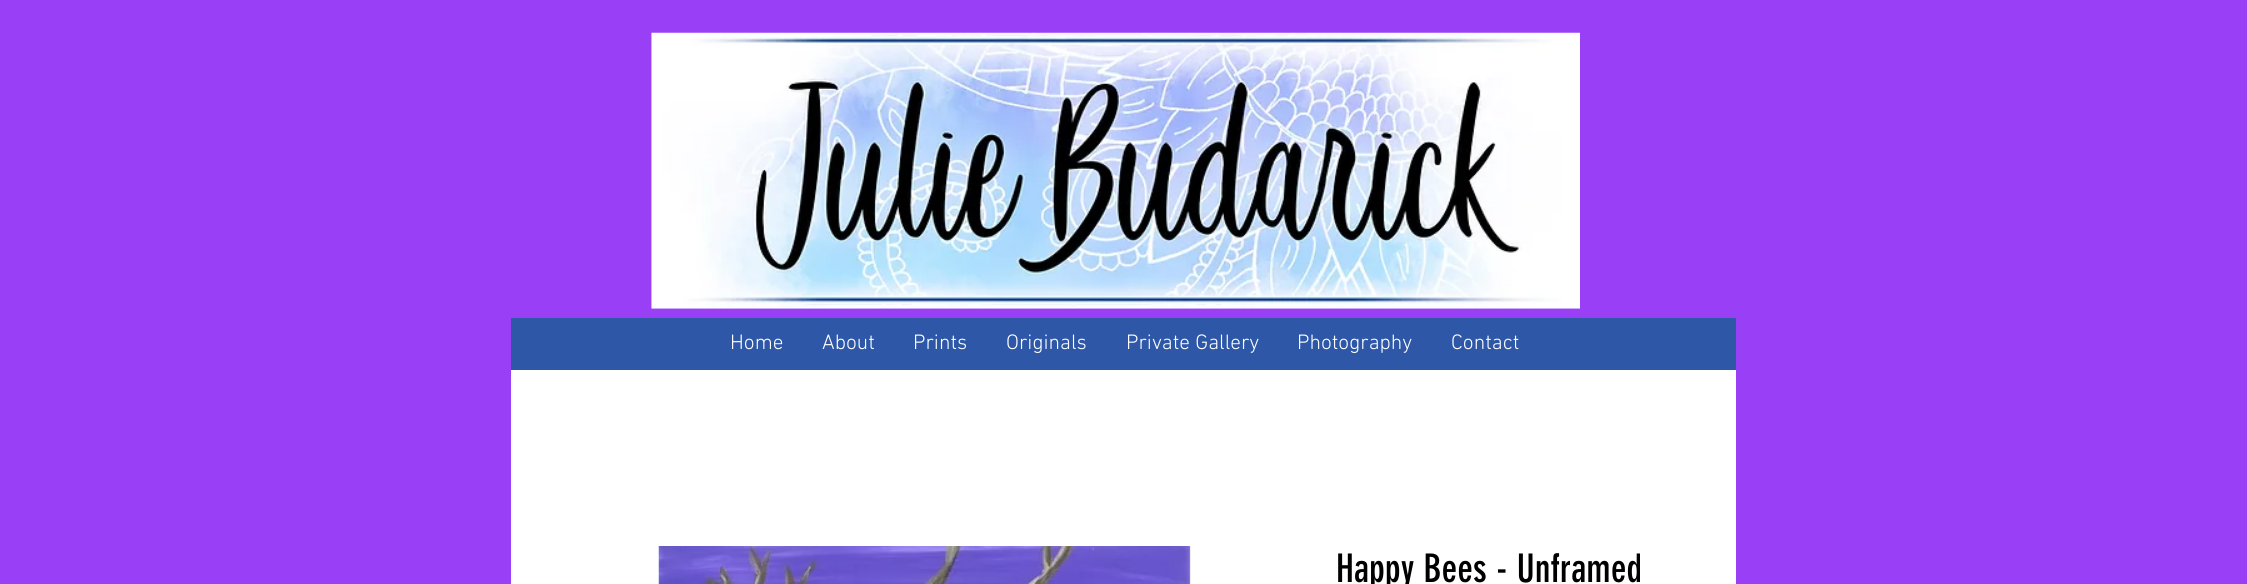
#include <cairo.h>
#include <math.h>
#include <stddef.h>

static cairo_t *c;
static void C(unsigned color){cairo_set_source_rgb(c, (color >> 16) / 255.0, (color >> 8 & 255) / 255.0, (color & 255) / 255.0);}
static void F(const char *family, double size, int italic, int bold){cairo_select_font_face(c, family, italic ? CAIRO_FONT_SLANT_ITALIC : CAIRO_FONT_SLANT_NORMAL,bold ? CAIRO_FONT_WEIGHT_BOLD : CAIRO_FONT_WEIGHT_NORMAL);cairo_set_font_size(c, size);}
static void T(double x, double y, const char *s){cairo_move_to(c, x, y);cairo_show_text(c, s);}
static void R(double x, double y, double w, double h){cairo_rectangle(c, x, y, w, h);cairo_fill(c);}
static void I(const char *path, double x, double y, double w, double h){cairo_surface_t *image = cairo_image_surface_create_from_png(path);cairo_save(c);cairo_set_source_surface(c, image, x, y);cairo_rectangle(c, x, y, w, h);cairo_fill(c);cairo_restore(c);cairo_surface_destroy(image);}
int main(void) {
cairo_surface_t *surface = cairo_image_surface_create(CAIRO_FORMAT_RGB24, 2247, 584);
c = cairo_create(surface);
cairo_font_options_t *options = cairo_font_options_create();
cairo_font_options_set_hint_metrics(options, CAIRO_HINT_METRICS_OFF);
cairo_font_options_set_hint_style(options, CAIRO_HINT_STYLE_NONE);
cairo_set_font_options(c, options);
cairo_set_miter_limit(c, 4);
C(0x993ff6);
cairo_paint(c);
I("1.png",651,32,929,277);
C(0x2e58a7);
R(511,318,1225,52);
F("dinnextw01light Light",21.25,0,0);
C(0xffffff);
T(730,349,"Home");
T(822,349,"About");
T(913,349,"Prints");
T(1006,349,"Originals");
T(1126,349,"Private Gallery");
T(1297,349,"Photography");
T(1451,349,"Contact");
R(511,370,1225,214);
I("2.png",658,546,533,38);
F("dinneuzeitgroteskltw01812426",38.75,0,0);
C(0x000000);
T(1336,582,"Happy Bees - Unframed");
cairo_surface_write_to_png(surface, "o.png");
cairo_font_options_destroy(options);
cairo_destroy(c);
cairo_surface_destroy(surface);
return 0;
}
